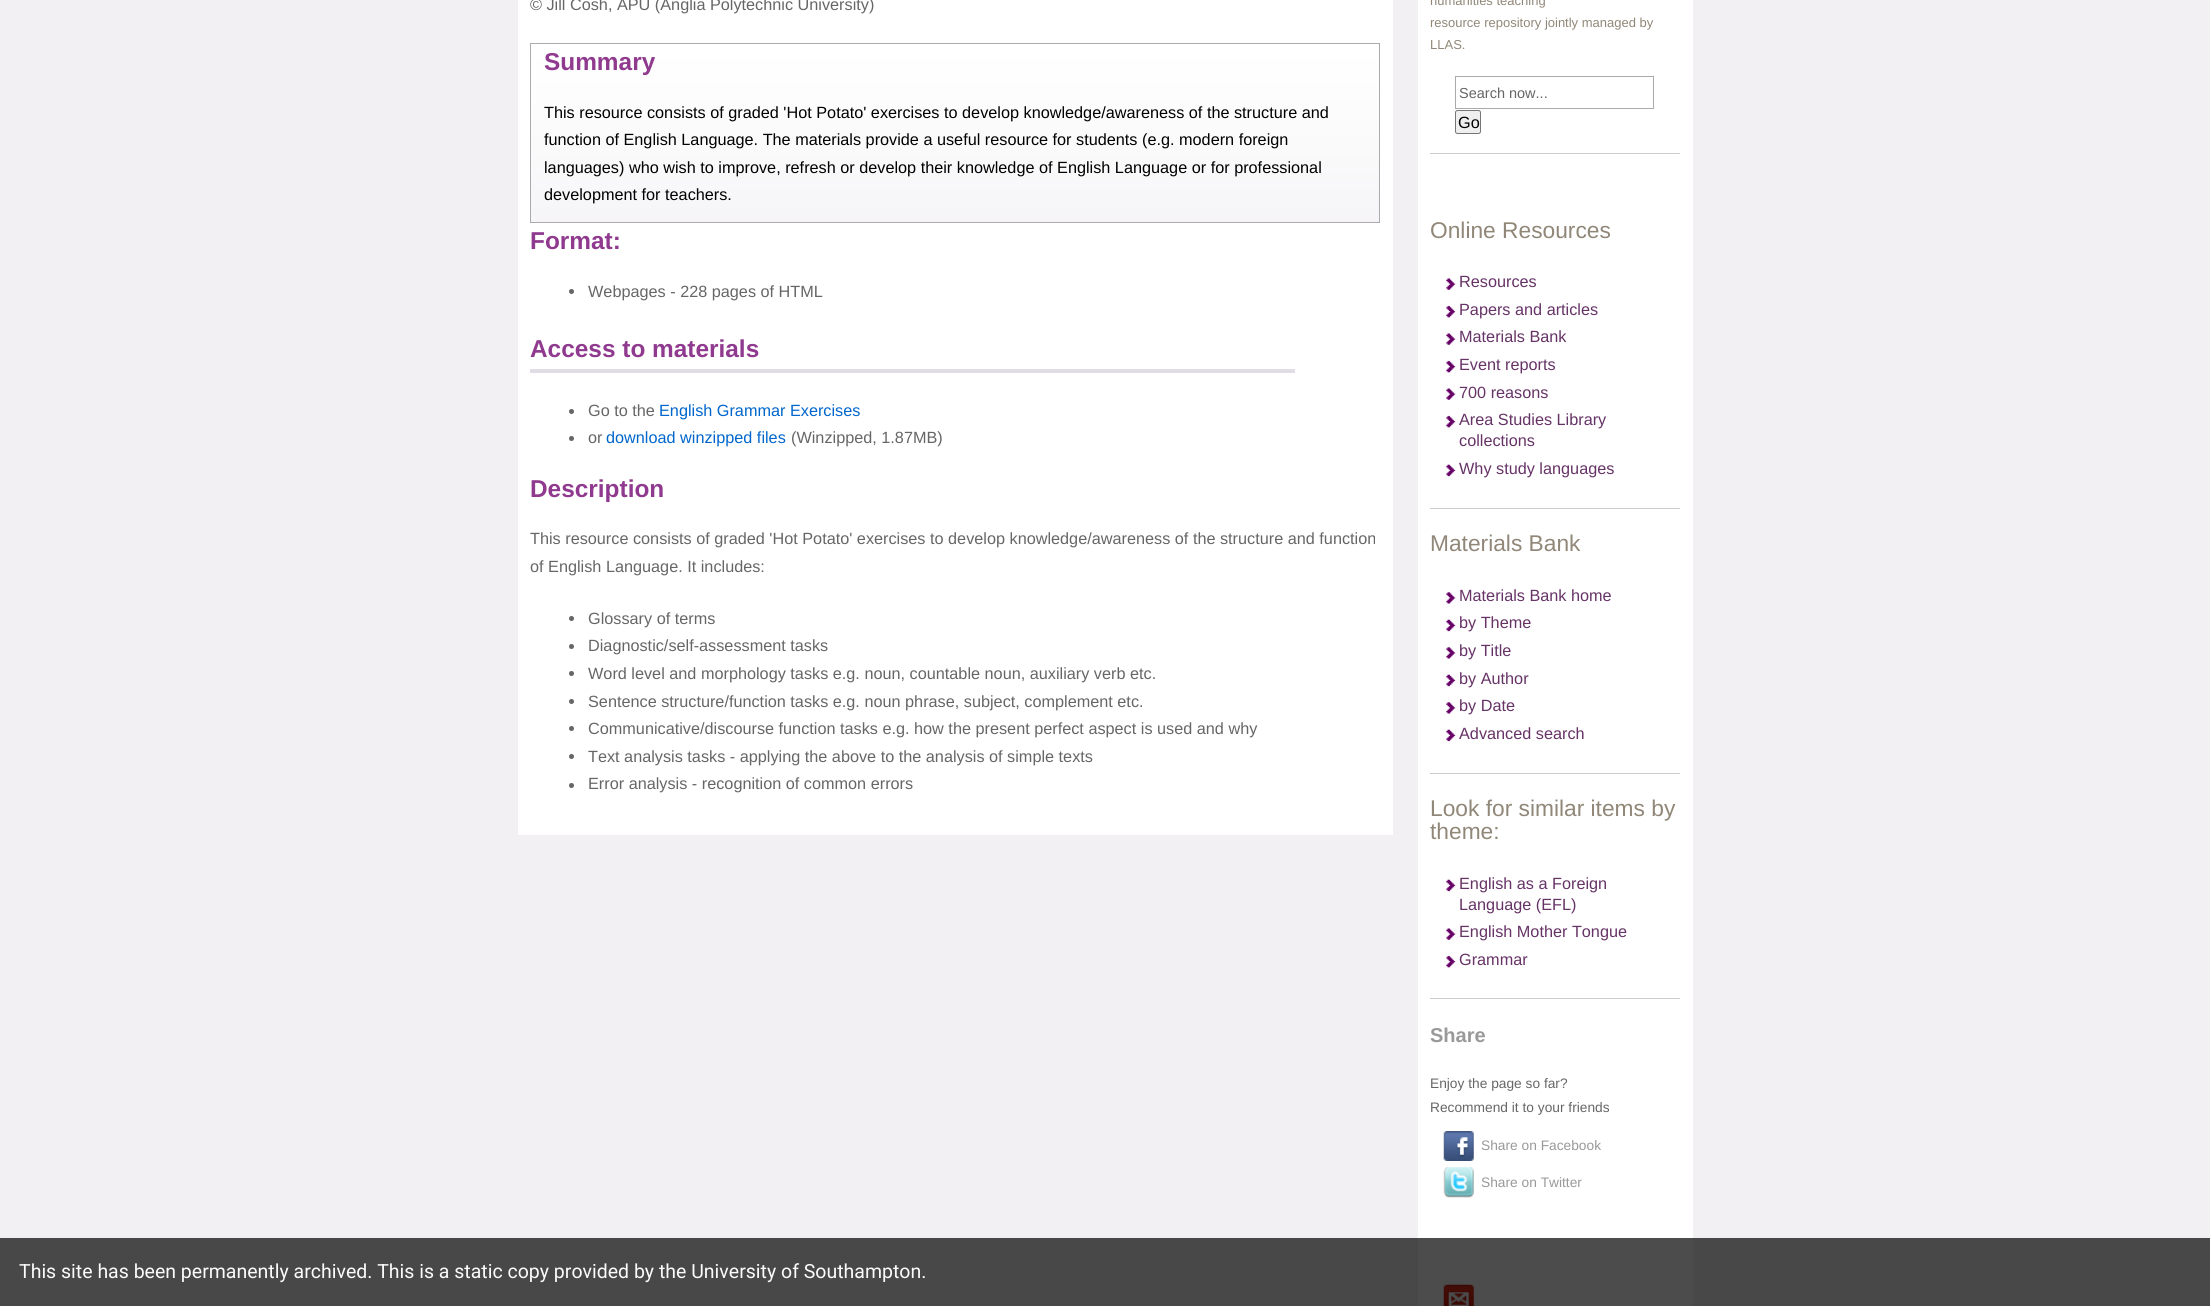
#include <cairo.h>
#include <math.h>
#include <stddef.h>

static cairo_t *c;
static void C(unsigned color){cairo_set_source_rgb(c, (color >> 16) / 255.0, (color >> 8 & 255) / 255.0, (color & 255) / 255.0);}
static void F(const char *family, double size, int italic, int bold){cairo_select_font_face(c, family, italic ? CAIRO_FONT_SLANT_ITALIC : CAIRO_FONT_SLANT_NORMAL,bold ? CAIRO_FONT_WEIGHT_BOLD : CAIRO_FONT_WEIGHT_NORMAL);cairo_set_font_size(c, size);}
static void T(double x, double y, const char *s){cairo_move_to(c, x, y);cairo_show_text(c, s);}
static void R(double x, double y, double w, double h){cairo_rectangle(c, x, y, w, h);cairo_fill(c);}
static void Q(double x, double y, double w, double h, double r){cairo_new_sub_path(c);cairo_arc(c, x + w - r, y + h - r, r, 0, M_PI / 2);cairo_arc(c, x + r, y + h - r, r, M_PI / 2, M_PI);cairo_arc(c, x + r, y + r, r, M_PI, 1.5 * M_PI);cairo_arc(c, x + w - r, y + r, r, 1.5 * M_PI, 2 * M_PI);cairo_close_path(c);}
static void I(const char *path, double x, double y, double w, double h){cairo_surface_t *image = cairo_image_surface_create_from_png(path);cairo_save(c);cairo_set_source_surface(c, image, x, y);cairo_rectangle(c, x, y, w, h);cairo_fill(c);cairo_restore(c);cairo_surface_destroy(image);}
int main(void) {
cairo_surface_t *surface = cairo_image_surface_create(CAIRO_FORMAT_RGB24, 2210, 1306);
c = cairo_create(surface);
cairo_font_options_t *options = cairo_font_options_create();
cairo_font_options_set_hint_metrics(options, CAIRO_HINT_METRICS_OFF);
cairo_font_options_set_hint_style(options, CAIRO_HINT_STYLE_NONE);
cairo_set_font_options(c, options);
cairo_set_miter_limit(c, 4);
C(0xf2f0f2);
cairo_paint(c);
C(0xffffff);
R(518,0,875,835);
F("Liberation Sans",16.25,0,0);
C(0x666666);
T(530,10,"© Jill Cosh, APU (Anglia Polytechnic University)");
I("1.png",531,44,848,178);
cairo_rectangle(c,530.5,43.5,849,179);
C(0xadaaaf);
cairo_set_line_width(c,1);
cairo_stroke(c);
F("Liberation Sans",24.4,0,1);
C(0x8f3a8e);
T(544,70,"Summary");
F("Liberation Sans",16.25,0,0);
C(0x000000);
T(544,118,"This resource consists of graded 'Hot Potato' exercises to develop knowledge/awareness of the structure and");
T(544,145,"function of English Language. The materials provide a useful resource for students (e.g. modern foreign");
T(544,173,"languages) who wish to improve, refresh or develop their knowledge of English Language or for professional");
T(544,200,"development for teachers.");
F("Liberation Sans",24.4,0,1);
C(0x8f3a8e);
T(530,249,"Format:");
C(0x666666);
cairo_new_path(c);
cairo_arc(c,571.5,291.5,2.5,0,2 * M_PI);
cairo_fill(c);
F("Liberation Sans",16.25,0,0);
T(588,297,"Webpages - 228 pages of HTML");
C(0xe1dde4);
R(530,369,765,4);
F("Liberation Sans",24.4,0,1);
C(0x8f3a8e);
T(530,357,"Access to materials");
C(0x666666);
cairo_new_path(c);
cairo_arc(c,571.5,411.5,2.5,0,2 * M_PI);
cairo_fill(c);
F("Liberation Sans",16.25,0,0);
T(588,416,"Go to the");
C(0x0066cc);
T(659,416,"English Grammar Exercises");
C(0x666666);
cairo_new_path(c);
cairo_arc(c,571.5,438.5,2.5,0,2 * M_PI);
cairo_fill(c);
T(588,443,"or");
C(0x0066cc);
T(606,443,"download winzipped files");
C(0x666666);
T(791,443,"(Winzipped, 1.87MB)");
F("Liberation Sans",24.4,0,1);
C(0x8f3a8e);
T(530,497,"Description");
F("Liberation Sans",16.25,0,0);
C(0x666666);
T(530,544,"This resource consists of graded 'Hot Potato' exercises to develop knowledge/awareness of the structure and function");
T(530,572,"of English Language. It includes:");
cairo_new_path(c);
cairo_arc(c,571.5,618.5,2.5,0,2 * M_PI);
cairo_fill(c);
T(588,624,"Glossary of terms");
cairo_new_path(c);
cairo_arc(c,571.5,646.5,2.5,0,2 * M_PI);
cairo_fill(c);
T(588,651,"Diagnostic/self-assessment tasks");
cairo_new_path(c);
cairo_arc(c,571.5,673.5,2.5,0,2 * M_PI);
cairo_fill(c);
T(588,679,"Word level and morphology tasks e.g. noun, countable noun, auxiliary verb etc.");
cairo_new_path(c);
cairo_arc(c,571.5,701.5,2.5,0,2 * M_PI);
cairo_fill(c);
T(588,707,"Sentence structure/function tasks e.g. noun phrase, subject, complement etc.");
cairo_new_path(c);
cairo_arc(c,571.5,728.5,2.5,0,2 * M_PI);
cairo_fill(c);
T(588,734,"Communicative/discourse function tasks e.g. how the present perfect aspect is used and why");
cairo_new_path(c);
cairo_arc(c,571.5,756.5,2.5,0,2 * M_PI);
cairo_fill(c);
T(588,762,"Text analysis tasks - applying the above to the analysis of simple texts");
cairo_new_path(c);
cairo_arc(c,571.5,785.5,2.5,0,2 * M_PI);
cairo_fill(c);
T(588,789,"Error analysis - recognition of common errors");
C(0xffffff);
R(1418,0,275,1306);
C(0xcccccc);
R(1430,153,250,1);
F("Liberation Sans",13,0,0);
C(0x908778);
T(1430,5,"humanities teaching");
T(1430,27,"resource repository jointly managed by");
T(1430,49,"LLAS.");
cairo_rectangle(c,1455.5,76.5,198,32);
C(0xada9a9);
cairo_stroke(c);
F("Liberation Sans",14.5,0,0);
C(0x666666);
T(1459,98,"Search now...");
C(0xefefef);
Q(1455.5,110.5,25,23,2);
cairo_fill_preserve(c);
C(0x767676);
cairo_stroke(c);
F("Liberation Sans",16.25,0,0);
C(0x000000);
T(1458,128,"Go");
C(0xcccccc);
R(1430,508,250,1);
F("Liberation Sans",22.75,0,0);
C(0x908778);
T(1430,238,"Online Resources");
I("2.png",1446,278,10,12);
F("Liberation Sans",16.25,0,0);
C(0x663366);
T(1459,287,"Resources");
I("3.png",1446,305,10,13);
T(1459,315,"Papers and articles");
I("2.png",1446,333,10,12);
T(1459,342,"Materials Bank");
I("3.png",1446,360,10,13);
T(1459,370,"Event reports");
I("4.png",1446,388,10,12);
T(1459,398,"700 reasons");
I("3.png",1446,415,10,13);
T(1459,425,"Area Studies Library");
T(1459,446,"collections");
I("5.png",1446,464,10,13);
T(1459,474,"Why study languages");
C(0xcccccc);
R(1430,773,250,1);
F("Liberation Sans",22.75,0,0);
C(0x908778);
T(1430,551,"Materials Bank");
I("6.png",1446,592,10,12);
F("Liberation Sans",16.25,0,0);
C(0x663366);
T(1459,601,"Materials Bank home");
I("5.png",1446,619,10,13);
T(1459,628,"by Theme");
I("6.png",1446,647,10,12);
T(1459,656,"by Title");
I("5.png",1446,674,10,13);
T(1459,684,"by Author");
I("6.png",1446,702,10,12);
T(1459,711,"by Date");
I("5.png",1446,729,10,13);
T(1459,739,"Advanced search");
C(0xcccccc);
R(1430,998,250,1);
F("Liberation Sans",22.75,0,0);
C(0x908778);
T(1430,816,"Look for similar items by");
T(1430,839,"theme:");
I("5.png",1446,879,10,13);
F("Liberation Sans",16.25,0,0);
C(0x663366);
T(1459,889,"English as a Foreign");
T(1459,910,"Language (EFL)");
I("2.png",1446,928,10,12);
T(1459,937,"English Mother Tongue");
I("3.png",1446,955,10,13);
T(1459,965,"Grammar");
F("Liberation Sans",20,0,1);
C(0x999999);
T(1430,1042,"Share");
F("Liberation Sans",13.75,0,0);
C(0x666666);
T(1430,1088,"Enjoy the page so far?");
T(1430,1112,"Recommend it to your friends");
I("7.png",1443,1131,31,30);
C(0x999999);
T(1481,1150,"Share on Facebook");
I("8.png",1443,1167,31,31);
T(1481,1187,"Share on Twitter");
I("9.png",1443,1284,31,22);
cairo_set_source_rgba(c,0,0,0,0.7);
R(0,1238,2210,68);
F("Roboto",19.5,0,0);
C(0xfbfbfb);
T(19,1278,"This site has been permanently archived. This is a static copy provided by the University of Southampton.");
cairo_surface_write_to_png(surface, "o.png");
cairo_font_options_destroy(options);
cairo_destroy(c);
cairo_surface_destroy(surface);
return 0;
}
